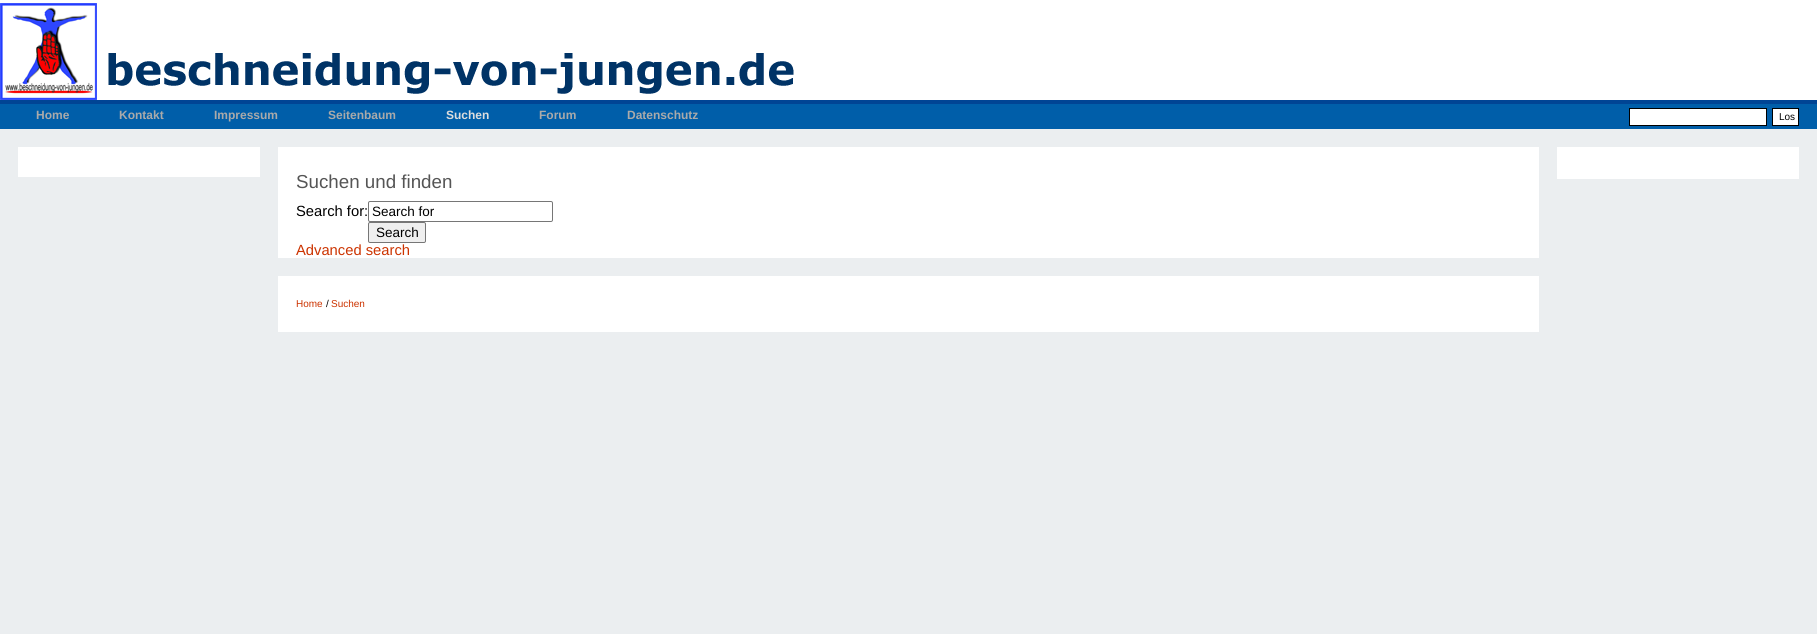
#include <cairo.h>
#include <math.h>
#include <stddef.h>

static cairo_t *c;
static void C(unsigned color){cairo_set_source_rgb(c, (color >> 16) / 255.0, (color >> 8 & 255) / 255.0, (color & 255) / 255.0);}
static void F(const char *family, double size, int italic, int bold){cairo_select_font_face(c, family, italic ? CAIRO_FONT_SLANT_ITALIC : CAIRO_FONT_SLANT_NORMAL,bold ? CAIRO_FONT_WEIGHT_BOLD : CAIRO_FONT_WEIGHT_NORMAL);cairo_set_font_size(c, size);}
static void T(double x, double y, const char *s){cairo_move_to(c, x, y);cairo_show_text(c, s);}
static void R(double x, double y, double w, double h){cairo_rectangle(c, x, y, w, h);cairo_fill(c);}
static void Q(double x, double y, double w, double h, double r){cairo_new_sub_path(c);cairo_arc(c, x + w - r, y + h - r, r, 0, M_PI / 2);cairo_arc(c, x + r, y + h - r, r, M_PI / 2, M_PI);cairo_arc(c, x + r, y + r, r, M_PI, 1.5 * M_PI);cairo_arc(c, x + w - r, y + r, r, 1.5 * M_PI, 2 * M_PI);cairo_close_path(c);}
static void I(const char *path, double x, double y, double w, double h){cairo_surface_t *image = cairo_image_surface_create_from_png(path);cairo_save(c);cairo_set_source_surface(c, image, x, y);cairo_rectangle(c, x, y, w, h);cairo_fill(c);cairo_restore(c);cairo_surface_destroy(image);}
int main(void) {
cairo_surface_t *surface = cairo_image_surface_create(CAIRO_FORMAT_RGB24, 1817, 634);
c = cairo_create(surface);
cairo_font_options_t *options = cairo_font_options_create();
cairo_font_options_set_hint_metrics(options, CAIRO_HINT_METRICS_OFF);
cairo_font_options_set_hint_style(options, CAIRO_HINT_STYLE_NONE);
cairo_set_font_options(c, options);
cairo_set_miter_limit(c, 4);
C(0xebeef0);
cairo_paint(c);
C(0xffffff);
R(0,0,1817,100);
I("1.png",0,3,794,97);
C(0x004494);
R(0,100,1817,4);
C(0x005ea9);
R(0,104,1817,25);
F("Liberation Sans",12,0,1);
C(0xaaaaaa);
T(36,119,"Home");
T(119,119,"Kontakt");
T(214,119,"Impressum");
T(328,119,"Seitenbaum");
C(0xdddddd);
T(446,119,"Suchen");
C(0xaaaaaa);
T(539,119,"Forum");
T(627,119,"Datenschutz");
C(0xffffff);
cairo_rectangle(c,1629.5,108.5,137,17);
cairo_fill_preserve(c);
C(0x000000);
cairo_set_line_width(c,1);
cairo_stroke(c);
C(0xffffff);
cairo_rectangle(c,1772.5,108.5,26,17);
cairo_fill_preserve(c);
C(0x000000);
cairo_stroke(c);
F("Liberation Sans",10,0,0);
T(1779,120,"Los");
C(0xffffff);
R(18,147,242,30);
R(1557,147,242,32);
R(278,147,1261,185);
F("Liberation Sans",18.75,0,0);
C(0x555555);
T(296,188,"Suchen und finden");
F("Liberation Sans",14.75,0,0);
C(0x000000);
T(296,216,"Search for:");
Q(368.5,201.5,184,20,1.5);
C(0x767676);
cairo_stroke(c);
F("Liberation Sans",13.5,0,0);
C(0x000000);
T(372,216,"Search for");
C(0xefefef);
Q(368.5,222.5,57,20,1.5);
cairo_fill_preserve(c);
C(0x767676);
cairo_stroke(c);
C(0x000000);
T(376,237,"Search");
F("Liberation Sans",14.75,0,0);
C(0xcc3300);
T(296,255,"Advanced search");
C(0xebeef0);
R(278,258,1261,18);
F("Liberation Sans",10,0,0);
C(0xcc3300);
T(296,307,"Home");
C(0x000000);
T(326,307,"/");
C(0xcc3300);
T(331,307,"Suchen");
cairo_surface_write_to_png(surface, "o.png");
cairo_font_options_destroy(options);
cairo_destroy(c);
cairo_surface_destroy(surface);
return 0;
}
